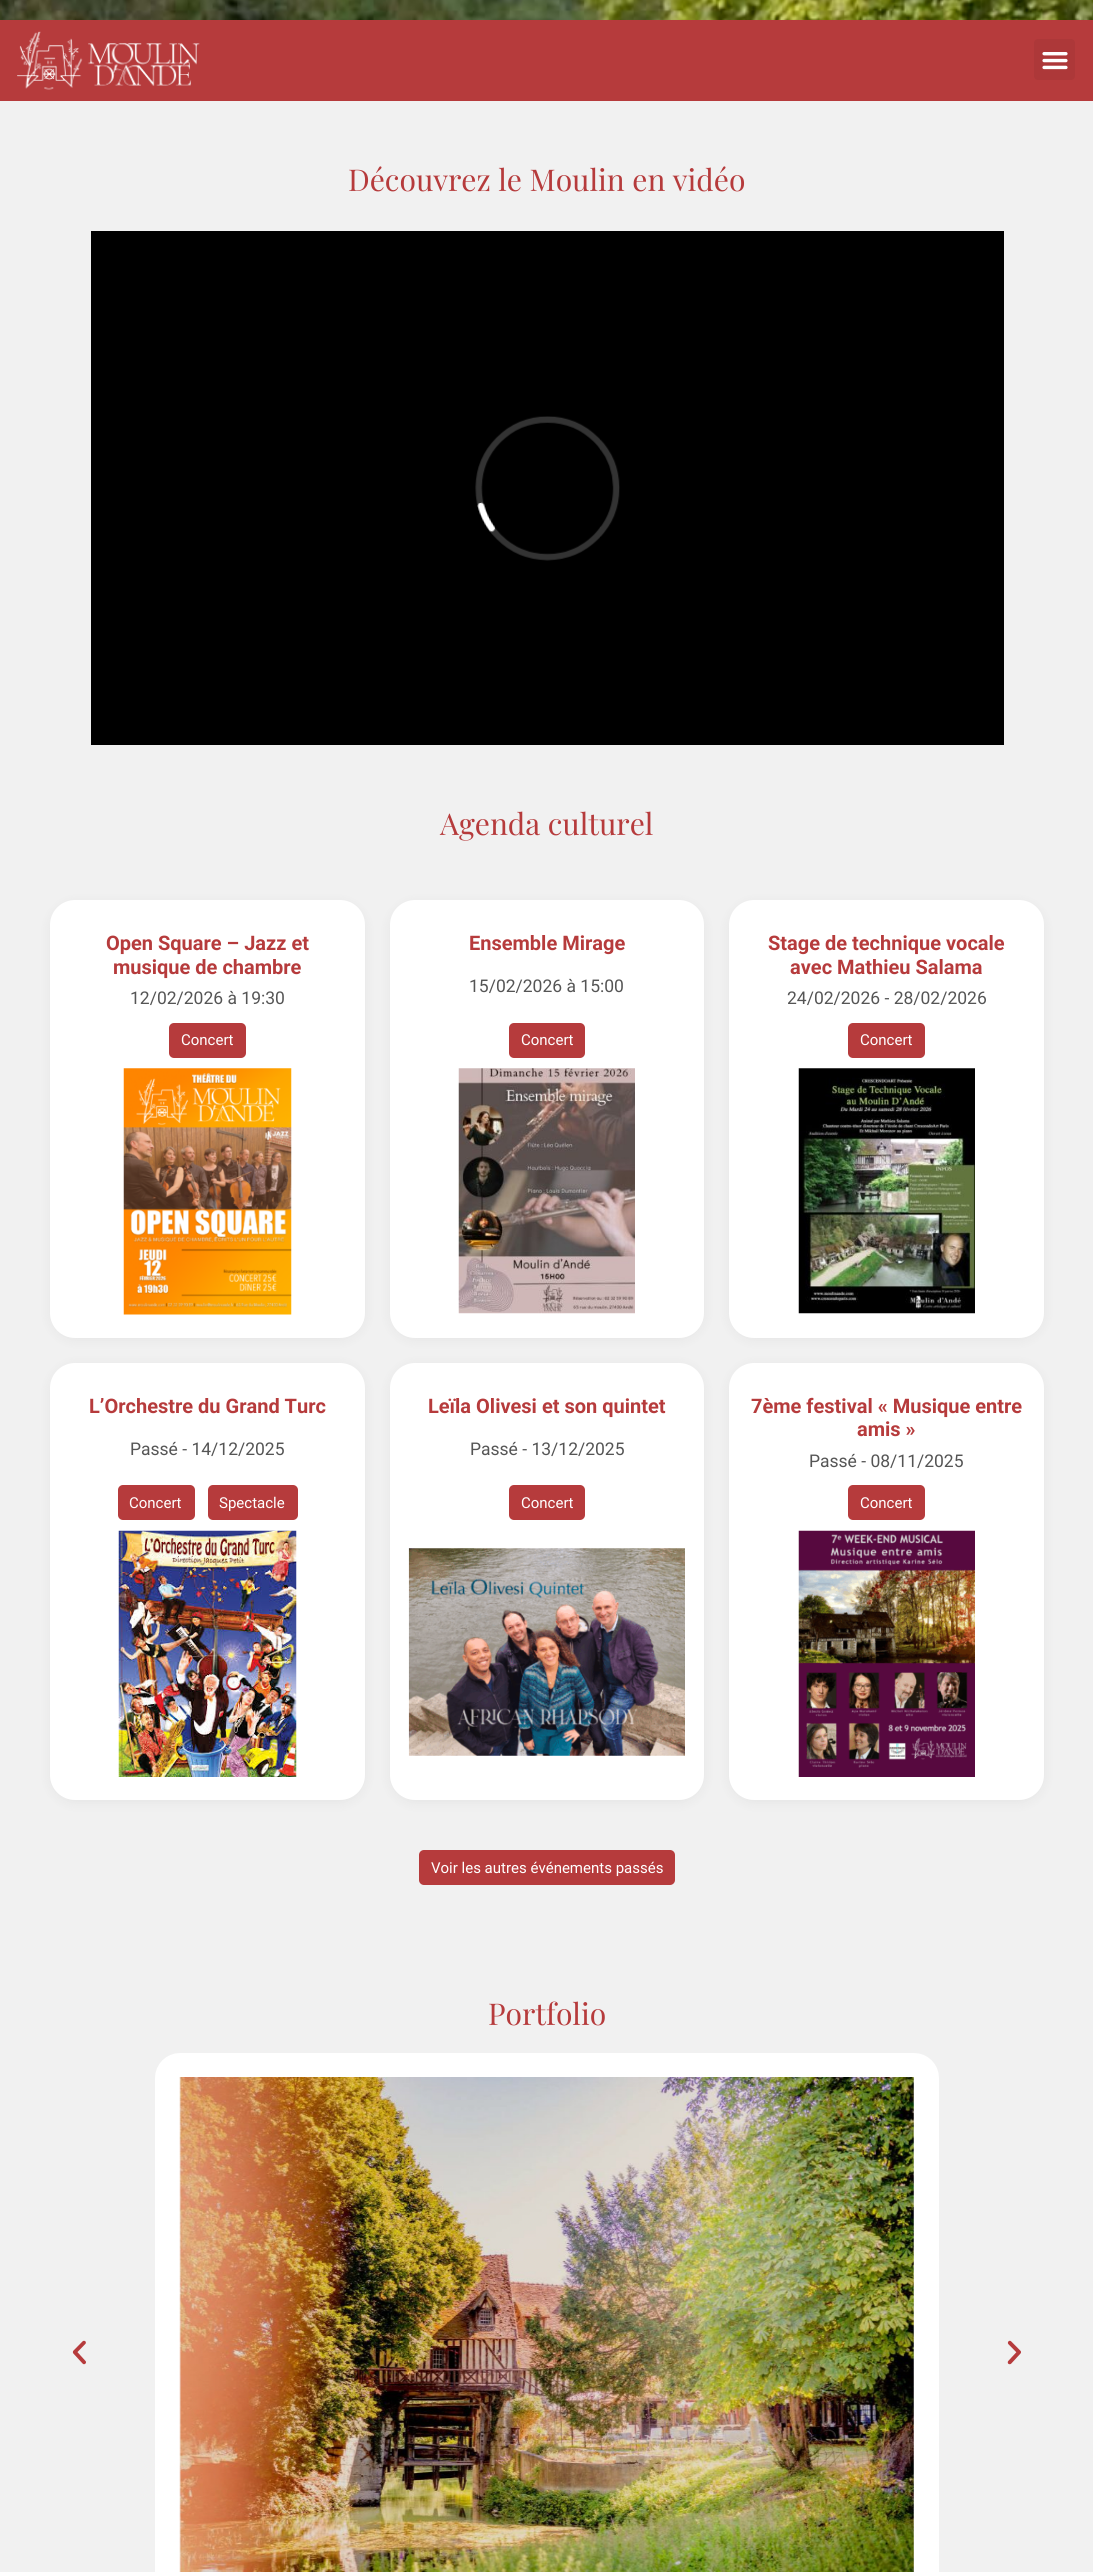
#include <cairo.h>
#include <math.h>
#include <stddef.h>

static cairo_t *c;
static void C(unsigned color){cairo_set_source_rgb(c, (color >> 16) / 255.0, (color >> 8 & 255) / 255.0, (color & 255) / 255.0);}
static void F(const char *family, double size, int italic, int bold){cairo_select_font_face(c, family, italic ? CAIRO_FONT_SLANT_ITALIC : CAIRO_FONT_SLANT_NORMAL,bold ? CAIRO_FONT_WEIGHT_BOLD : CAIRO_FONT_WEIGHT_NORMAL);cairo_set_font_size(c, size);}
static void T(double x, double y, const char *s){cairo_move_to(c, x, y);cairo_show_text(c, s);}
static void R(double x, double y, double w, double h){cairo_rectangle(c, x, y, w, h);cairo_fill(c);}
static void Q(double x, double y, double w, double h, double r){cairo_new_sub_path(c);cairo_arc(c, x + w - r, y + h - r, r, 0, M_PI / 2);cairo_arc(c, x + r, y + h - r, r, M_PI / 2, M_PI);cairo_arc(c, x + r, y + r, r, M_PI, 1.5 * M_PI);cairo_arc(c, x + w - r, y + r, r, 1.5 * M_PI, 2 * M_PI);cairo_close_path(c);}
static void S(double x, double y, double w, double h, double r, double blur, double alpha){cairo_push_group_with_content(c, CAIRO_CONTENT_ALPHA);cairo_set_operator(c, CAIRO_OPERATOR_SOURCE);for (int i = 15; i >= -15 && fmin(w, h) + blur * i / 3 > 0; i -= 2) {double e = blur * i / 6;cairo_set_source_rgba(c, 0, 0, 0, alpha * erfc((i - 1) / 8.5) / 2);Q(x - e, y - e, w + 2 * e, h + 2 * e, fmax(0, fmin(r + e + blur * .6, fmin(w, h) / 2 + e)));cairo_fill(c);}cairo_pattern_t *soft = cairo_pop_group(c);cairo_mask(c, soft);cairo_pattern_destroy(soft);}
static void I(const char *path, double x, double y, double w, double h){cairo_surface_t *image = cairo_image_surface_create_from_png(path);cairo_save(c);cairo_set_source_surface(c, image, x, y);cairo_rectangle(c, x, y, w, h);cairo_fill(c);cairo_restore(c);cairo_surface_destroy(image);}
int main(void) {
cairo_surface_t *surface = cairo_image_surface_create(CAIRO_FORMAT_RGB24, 1093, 2572);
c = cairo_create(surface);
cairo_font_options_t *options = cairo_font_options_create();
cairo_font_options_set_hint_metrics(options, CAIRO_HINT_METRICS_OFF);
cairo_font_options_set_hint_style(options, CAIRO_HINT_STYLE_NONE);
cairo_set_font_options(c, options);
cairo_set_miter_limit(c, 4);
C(0xffffff);
cairo_paint(c);
I("1.png",0,0,1093,20);
C(0xb63b3c);
R(0,20,1093,81);
I("2.png",17,31,183,59);
C(0xad3839);
Q(1034,39,41,41,4);
cairo_fill(c);
I("3.png",1042,52,26,18);
C(0xf1f1f1);
R(0,101,1093,2471);
F("Playfair Display",30,0,0);
C(0xb63b3c);
T(348,191,"Découvrez le Moulin en vidéo");
C(0x000000);
R(91,231,913,514);
I("4.png",475,416,145,145);
C(0xb63b3c);
T(440,835,"Agenda culturel");
C(0x000000);
S(50,903,315,437,25,6,.05);
C(0xffffff);
Q(50,900,315,438,25);
cairo_fill(c);
F("Roboto",20,0,1);
C(0xb63b3c);
T(106,950,"Open Square – Jazz et");
T(113,974,"musique de chambre");
F("Roboto",17.5,0,0);
C(0x555555);
T(130,1004,"12/02/2026 à 19:30");
C(0xb63b3c);
Q(169,1023,77,35,5);
cairo_fill(c);
F("Roboto",15,0,0);
C(0xffffff);
T(181,1045,"Concert");
I("5.png",123,1068,169,247);
C(0x000000);
S(390,903,314,437,25,6,.05);
C(0xffffff);
Q(390,900,314,438,25);
cairo_fill(c);
F("Roboto",20,0,1);
C(0xb63b3c);
T(469,950,"Ensemble Mirage");
F("Roboto",17.5,0,0);
C(0x555555);
T(469,992,"15/02/2026 à 15:00");
C(0xb63b3c);
Q(509,1023,76,35,5);
cairo_fill(c);
F("Roboto",15,0,0);
C(0xffffff);
T(521,1045,"Concert");
I("6.png",458,1068,177,246);
C(0x000000);
S(729,903,315,437,25,6,.05);
C(0xffffff);
Q(729,900,315,438,25);
cairo_fill(c);
F("Roboto",20,0,1);
C(0xb63b3c);
T(768,950,"Stage de technique vocale");
T(790,974,"avec Mathieu Salama");
F("Roboto",17.5,0,0);
C(0x555555);
T(787,1004,"24/02/2026 - 28/02/2026");
C(0xb63b3c);
Q(848,1023,77,35,5);
cairo_fill(c);
F("Roboto",15,0,0);
C(0xffffff);
T(860,1045,"Concert");
I("7.png",798,1068,177,246);
C(0x000000);
S(50,1365,315,438,25,6,.05);
C(0xffffff);
Q(50,1363,315,437,25);
cairo_fill(c);
F("Roboto",20,0,1);
C(0xb63b3c);
T(89,1413,"L’Orchestre du Grand Turc");
F("Roboto",17.5,0,0);
C(0x555555);
T(130,1455,"Passé - 14/12/2025");
C(0xb63b3c);
Q(118,1485,77,35,5);
cairo_fill(c);
F("Roboto",15,0,0);
C(0xffffff);
T(129,1508,"Concert");
C(0xb63b3c);
Q(208,1485,90,35,5);
cairo_fill(c);
C(0xffffff);
T(219,1508,"Spectacle");
I("8.png",118,1530,179,247);
C(0x000000);
S(390,1365,314,438,25,6,.05);
C(0xffffff);
Q(390,1363,314,437,25);
cairo_fill(c);
F("Roboto",20,0,1);
C(0xb63b3c);
T(428,1413,"Leïla Olivesi et son quintet");
F("Roboto",17.5,0,0);
C(0x555555);
T(470,1455,"Passé - 13/12/2025");
C(0xb63b3c);
Q(509,1485,76,35,5);
cairo_fill(c);
F("Roboto",15,0,0);
C(0xffffff);
T(521,1508,"Concert");
I("9.png",408,1548,277,208);
C(0x000000);
S(729,1365,315,438,25,6,.05);
C(0xffffff);
Q(729,1363,315,437,25);
cairo_fill(c);
F("Roboto",20,0,1);
C(0xb63b3c);
T(751,1413,"7ème festival « Musique entre");
T(857,1436,"amis »");
F("Roboto",17.5,0,0);
C(0x555555);
T(809,1467,"Passé - 08/11/2025");
C(0xb63b3c);
Q(848,1485,77,35,5);
cairo_fill(c);
F("Roboto",15,0,0);
C(0xffffff);
T(860,1508,"Concert");
I("10.png",798,1530,177,247);
C(0xb63b3c);
Q(419,1850,256,35,5);
cairo_fill(c);
C(0xffffff);
T(431,1873,"Voir les autres événements passés");
F("Playfair Display",30,0,0);
C(0xb63b3c);
T(488,2025,"Portfolio");
I("11.png",72,2340,14,25);
Q(167.5,2065.5,759,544,12.5);
C(0xffffff);
cairo_set_line_width(c,25);
cairo_stroke(c);
I("12.png",179,2077,735,495);
I("13.png",1007,2340,14,25);
cairo_surface_write_to_png(surface, "o.png");
cairo_font_options_destroy(options);
cairo_destroy(c);
cairo_surface_destroy(surface);
return 0;
}
